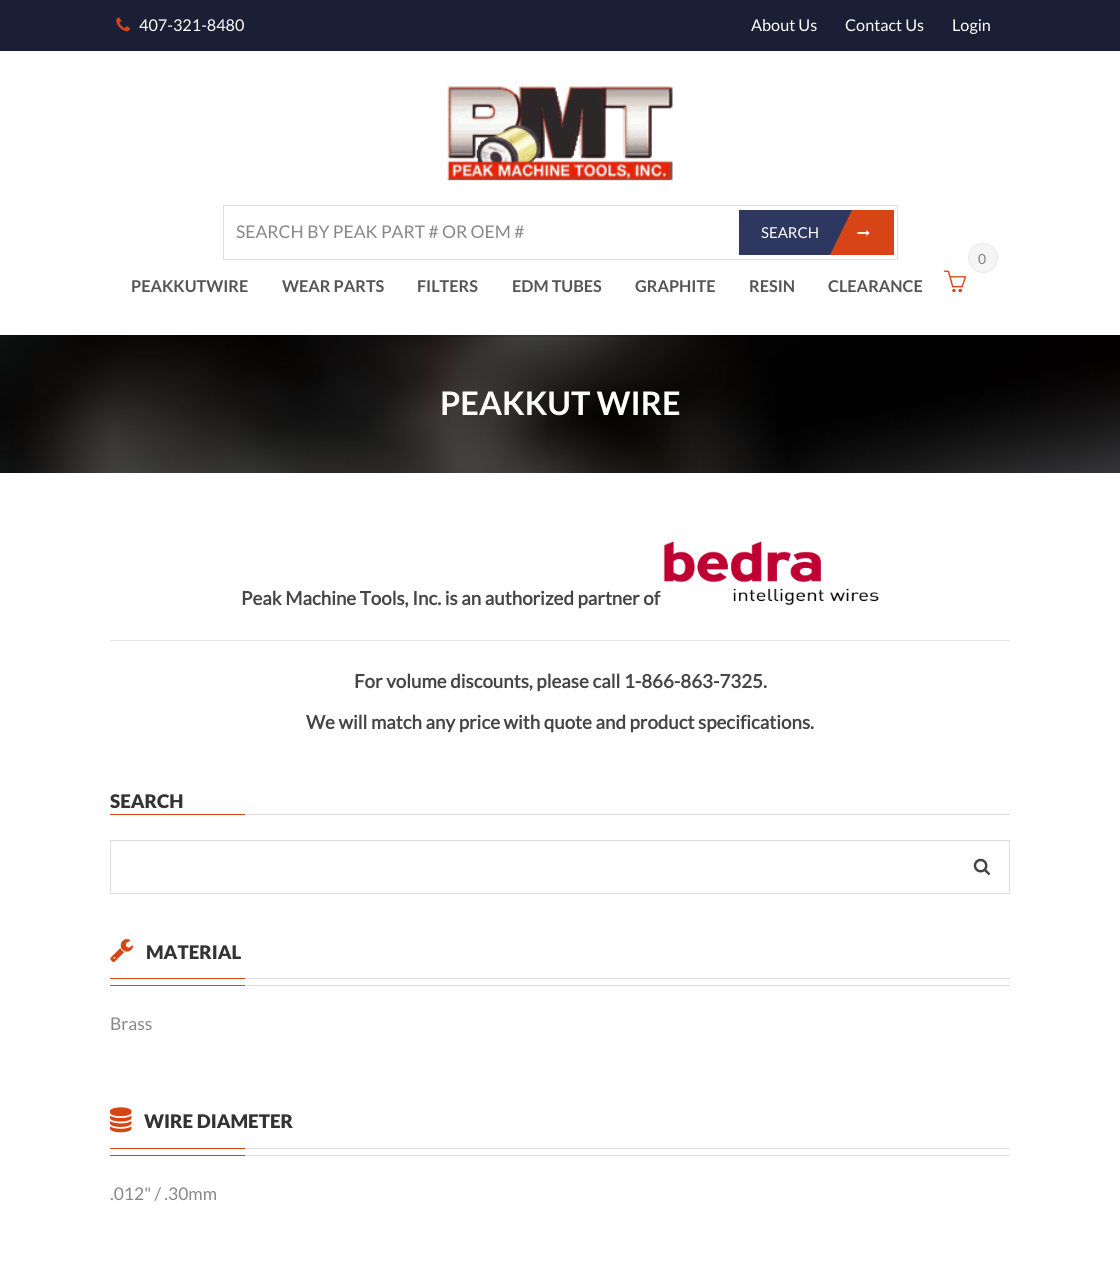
#include <cairo.h>
#include <math.h>
#include <stddef.h>

static cairo_t *c;
static void C(unsigned color){cairo_set_source_rgb(c, (color >> 16) / 255.0, (color >> 8 & 255) / 255.0, (color & 255) / 255.0);}
static void F(const char *family, double size, int italic, int bold){cairo_select_font_face(c, family, italic ? CAIRO_FONT_SLANT_ITALIC : CAIRO_FONT_SLANT_NORMAL,bold ? CAIRO_FONT_WEIGHT_BOLD : CAIRO_FONT_WEIGHT_NORMAL);cairo_set_font_size(c, size);}
static void T(double x, double y, const char *s){cairo_move_to(c, x, y);cairo_show_text(c, s);}
static void R(double x, double y, double w, double h){cairo_rectangle(c, x, y, w, h);cairo_fill(c);}
static void Q(double x, double y, double w, double h, double r){cairo_new_sub_path(c);cairo_arc(c, x + w - r, y + h - r, r, 0, M_PI / 2);cairo_arc(c, x + r, y + h - r, r, M_PI / 2, M_PI);cairo_arc(c, x + r, y + r, r, M_PI, 1.5 * M_PI);cairo_arc(c, x + w - r, y + r, r, 1.5 * M_PI, 2 * M_PI);cairo_close_path(c);}
static void S(double x, double y, double w, double h, double r, double blur, double alpha){cairo_push_group_with_content(c, CAIRO_CONTENT_ALPHA);cairo_set_operator(c, CAIRO_OPERATOR_SOURCE);for (int i = 15; i >= -15 && fmin(w, h) + blur * i / 3 > 0; i -= 2) {double e = blur * i / 6;cairo_set_source_rgba(c, 0, 0, 0, alpha * erfc((i - 1) / 8.5) / 2);Q(x - e, y - e, w + 2 * e, h + 2 * e, fmax(0, fmin(r + e + blur * .6, fmin(w, h) / 2 + e)));cairo_fill(c);}cairo_pattern_t *soft = cairo_pop_group(c);cairo_mask(c, soft);cairo_pattern_destroy(soft);}
static void I(const char *path, double x, double y, double w, double h){cairo_surface_t *image = cairo_image_surface_create_from_png(path);cairo_save(c);cairo_set_source_surface(c, image, x, y);cairo_rectangle(c, x, y, w, h);cairo_fill(c);cairo_restore(c);cairo_surface_destroy(image);}
int main(void) {
cairo_surface_t *surface = cairo_image_surface_create(CAIRO_FORMAT_RGB24, 1120, 1268);
c = cairo_create(surface);
cairo_font_options_t *options = cairo_font_options_create();
cairo_font_options_set_hint_metrics(options, CAIRO_HINT_METRICS_OFF);
cairo_font_options_set_hint_style(options, CAIRO_HINT_STYLE_NONE);
cairo_set_font_options(c, options);
cairo_set_miter_limit(c, 4);
C(0xffffff);
cairo_paint(c);
C(0x1a1f35);
R(0,0,1120,51);
I("1.png",116,17,14,15);
F("Lato",16.25,0,0);
C(0xffffff);
T(139,31,"407-321-8480");
T(751,31,"About Us");
T(845,31,"Contact Us");
T(952,31,"Login");
I("5.png",0,335,1120,138);
cairo_save(c);
cairo_rectangle(c,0,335,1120,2);
cairo_clip(c);
C(0x000000);
S(0,53,1120,283,0,.5,.2);
cairo_restore(c);
I("2.png",447,86,226,95);
cairo_rectangle(c,223.5,205.5,674,54);
C(0xe0e0e0);
cairo_set_line_width(c,1);
cairo_stroke(c);
F("Lato",17.5,0,0);
C(0x888888);
T(236,238,"SEARCH BY PEAK PART # OR OEM #");
C(0x2e375f);
R(739,210,113,45);
F("Lato",15,0,0);
C(0xffffff);
T(761,238,"SEARCH");
cairo_save(c);
cairo_rectangle(c,739,210,155,45);
cairo_clip(c);
C(0xd74516);
cairo_new_path(c);
cairo_move_to(c,852,210);
cairo_line_to(c,917,210);
cairo_line_to(c,895,255);
cairo_line_to(c,830,255);
cairo_close_path(c);
cairo_fill(c);
cairo_restore(c);
I("3.png",857,230,13,6);
C(0xf5f5f5);
cairo_arc(c,983,258,14.5,0,2 * M_PI);
cairo_fill_preserve(c);
C(0xe8e8e8);
cairo_stroke(c);
F("Lato",14,0,0);
C(0x818181);
T(978,264,"0");
I("4.png",943,270,24,23);
F("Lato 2",16.25,0,1);
C(0x555555);
T(131,292,"PEAKKUTWIRE");
T(282,292,"WEAR PARTS");
T(417,292,"FILTERS");
T(512,292,"EDM TUBES");
T(635,292,"GRAPHITE");
T(749,292,"RESIN");
T(828,292,"CLEARANCE");
F("Lato 2",32.5,0,1);
C(0xffffff);
T(440,415,"PEAKKUT WIRE");
F("Lato",18.75,0,1);
C(0x454545);
T(241,605,"Peak Machine Tools, Inc. is an authorized partner of");
I("6.png",663,541,216,65);
C(0xe6e6e6);
R(110,640,900,1);
C(0x454545);
T(354,688,"For volume discounts, please call 1-866-863-7325.");
T(306,729,"We will match any price with quote and product specifications.");
C(0xdddddd);
R(245,814,765,1);
F("Lato Black",18.75,0,0);
C(0x333333);
T(110,808,"SEARCH");
C(0xd74515);
R(110,814,135,1);
cairo_rectangle(c,110.5,840.5,899,53);
C(0xdddddd);
cairo_stroke(c);
I("7.png",973,858,17,17);
R(245,985,765,1);
R(245,978,765,1);
I("8.png",110,939,24,23);
C(0x333333);
T(146,959,"MATERIAL");
C(0xd74515);
R(110,978,135,1);
R(110,985,135,1);
F("Lato",17.5,0,0);
C(0x888888);
T(110,1030,"Brass");
C(0xdddddd);
R(245,1155,765,1);
R(245,1148,765,1);
I("9.png",110,1107,22,26);
F("Lato Black",18.75,0,0);
C(0x333333);
T(144,1128,"WIRE DIAMETER");
C(0xd74515);
R(110,1148,135,1);
R(110,1155,135,1);
F("Lato",17.5,0,0);
C(0x888888);
T(110,1200,".012\" / .30mm");
cairo_surface_write_to_png(surface, "o.png");
cairo_font_options_destroy(options);
cairo_destroy(c);
cairo_surface_destroy(surface);
return 0;
}
